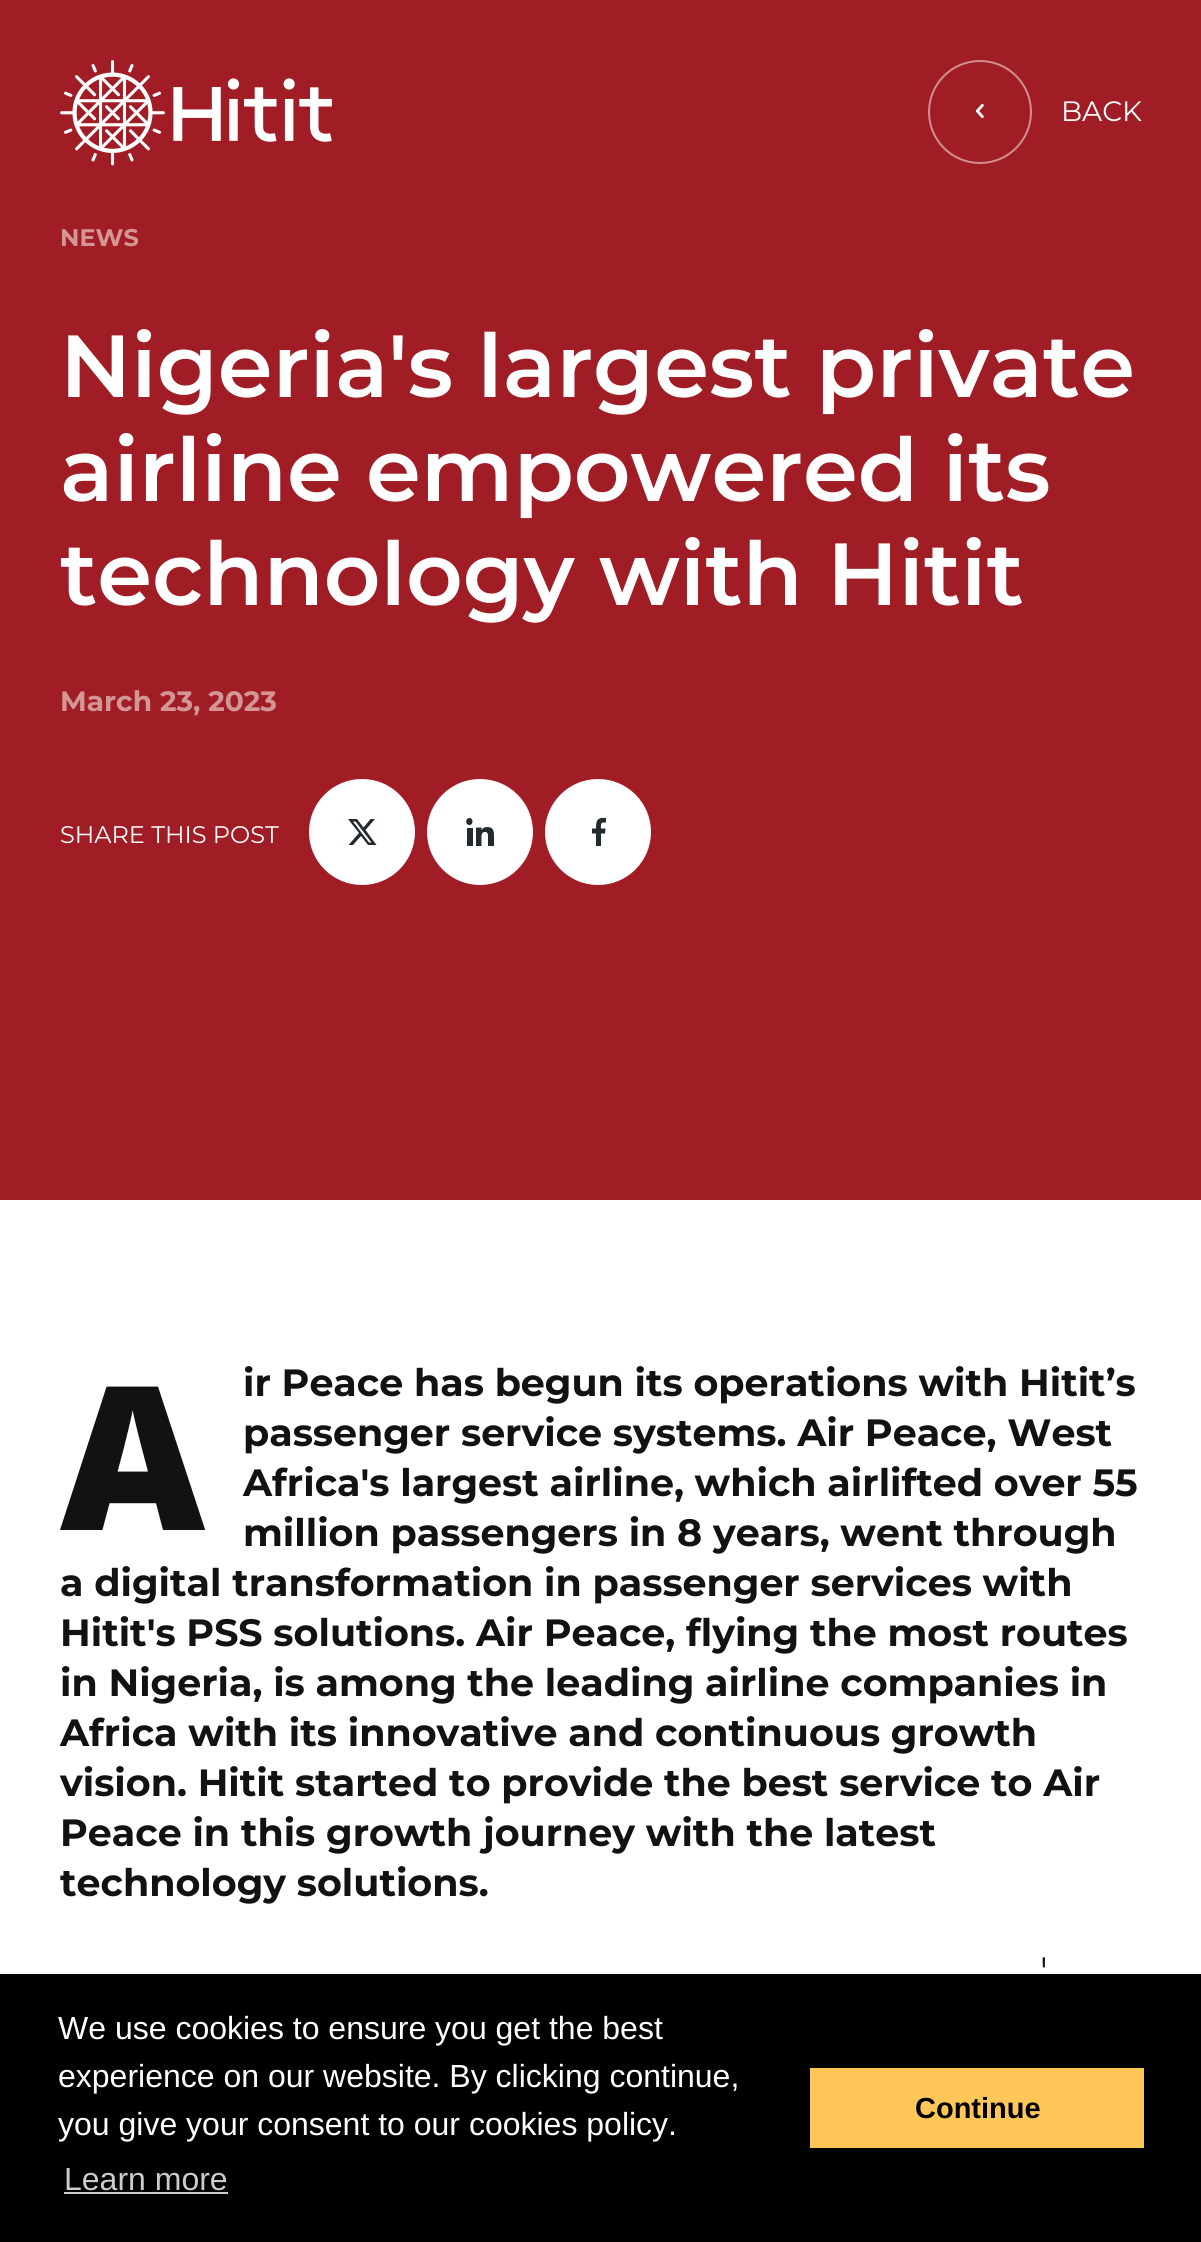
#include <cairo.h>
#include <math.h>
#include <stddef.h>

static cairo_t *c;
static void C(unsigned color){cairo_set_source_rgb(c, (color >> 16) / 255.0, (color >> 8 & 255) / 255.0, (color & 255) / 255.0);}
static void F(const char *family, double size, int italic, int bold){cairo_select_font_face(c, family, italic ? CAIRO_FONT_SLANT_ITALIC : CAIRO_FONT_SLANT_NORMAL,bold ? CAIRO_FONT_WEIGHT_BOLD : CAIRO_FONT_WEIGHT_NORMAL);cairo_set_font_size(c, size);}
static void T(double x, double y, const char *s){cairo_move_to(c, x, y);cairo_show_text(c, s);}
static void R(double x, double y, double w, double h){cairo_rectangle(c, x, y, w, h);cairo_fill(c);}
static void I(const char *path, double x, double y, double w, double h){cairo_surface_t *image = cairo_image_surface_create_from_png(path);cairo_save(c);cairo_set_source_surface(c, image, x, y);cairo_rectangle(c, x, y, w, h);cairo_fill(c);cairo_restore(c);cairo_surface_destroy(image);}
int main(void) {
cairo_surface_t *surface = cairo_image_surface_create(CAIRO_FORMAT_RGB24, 1201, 2242);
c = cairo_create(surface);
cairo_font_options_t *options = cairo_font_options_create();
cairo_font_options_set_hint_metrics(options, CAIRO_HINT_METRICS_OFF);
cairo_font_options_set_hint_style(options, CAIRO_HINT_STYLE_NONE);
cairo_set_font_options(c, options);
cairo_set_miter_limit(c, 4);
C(0xa01d26);
cairo_paint(c);
I("1.png",60,60,272,106);
I("2.png",928,60,104,104);
F("Montserrat",28,0,0);
C(0xffffff);
T(1061,121,"BACK");
F("Montserrat",24,0,1);
C(0xd49595);
T(60,246,"NEWS");
F("Montserrat SemiBold",88,0,0);
C(0xffffff);
T(60,397,"Nigeria's largest private");
T(60,501,"airline empowered its");
T(60,605,"technology with Hitit");
F("Montserrat",28,0,1);
C(0xd49595);
T(60,711,"March 23, 2023");
F("Montserrat",24,0,0);
C(0xffffff);
T(60,843,"SHARE THIS POST");
cairo_new_path(c);
cairo_arc(c,362,832,52,0,2 * M_PI);
cairo_fill_preserve(c);
cairo_stroke(c);
C(0x222b2d);
cairo_new_path(c);
cairo_move_to(c,370.5,819);
cairo_line_to(c,375,819);
cairo_line_to(c,365.5,830);
cairo_line_to(c,376.5,845);
cairo_line_to(c,368,845);
cairo_line_to(c,361,836);
cairo_line_to(c,353,845);
cairo_line_to(c,348.5,845);
cairo_line_to(c,359,833);
cairo_line_to(c,348,819);
cairo_line_to(c,357,819);
cairo_line_to(c,363.5,827.5);
cairo_close_path(c);
cairo_move_to(c,369,842.5);
cairo_line_to(c,371.5,842.5);
cairo_line_to(c,355.5,821.5);
cairo_line_to(c,353,821.5);
cairo_close_path(c);
cairo_fill(c);
C(0xffffff);
cairo_arc(c,480,832,52,0,2 * M_PI);
cairo_fill_preserve(c);
cairo_stroke(c);
C(0x222b2d);
cairo_new_path(c);
cairo_move_to(c,469.5,818);
cairo_curve_to(c,465,818,465,825,469.5,825);
cairo_curve_to(c,473.5,825,473.5,818,469.5,818);
cairo_close_path(c);
cairo_fill(c);
R(467,828,6,18);
cairo_new_path(c);
cairo_move_to(c,494,846);
cairo_line_to(c,494,835.5);
cairo_curve_to(c,494,830.5,493,827,487,827);
cairo_curve_to(c,484,827,482.5,828.5,481.5,830);
cairo_line_to(c,481.5,827.5);
cairo_line_to(c,476,827.5);
cairo_line_to(c,476,846);
cairo_line_to(c,481.5,846);
cairo_line_to(c,481.5,836.5);
cairo_curve_to(c,481.5,834.5,482,832,485,832);
cairo_curve_to(c,488,832,488,834.5,488,837);
cairo_line_to(c,488,846);
cairo_close_path(c);
cairo_fill(c);
C(0xffffff);
cairo_arc(c,598,832,52,0,2 * M_PI);
cairo_fill_preserve(c);
cairo_stroke(c);
C(0x222b2d);
cairo_new_path(c);
cairo_move_to(c,603.5,822.5);
cairo_line_to(c,606,822.5);
cairo_line_to(c,606,818);
cairo_curve_to(c,597,817,596,820.5,596,828.5);
cairo_line_to(c,592,828.5);
cairo_line_to(c,592,833.5);
cairo_line_to(c,596,833.5);
cairo_line_to(c,596,846);
cairo_line_to(c,601,846);
cairo_line_to(c,601,833.5);
cairo_line_to(c,605,833.5);
cairo_line_to(c,605.5,828.5);
cairo_line_to(c,601,828.5);
cairo_curve_to(c,601,826.5,600,822.5,603.5,822.5);
cairo_close_path(c);
cairo_fill(c);
C(0xffffff);
R(0,1200,1201,774);
F("Noto Sans Black",200,0,0);
C(0x121212);
T(60,1530,"A");
F("Montserrat",38,0,1);
T(243,1396,"ir Peace has begun its operations with Hitit’s");
T(243,1446,"passenger service systems. Air Peace, West");
T(243,1496,"Africa's largest airline, which airlifted over 55");
T(243,1546,"million passengers in 8 years, went through");
T(60,1596,"a digital transformation in passenger services with");
T(60,1646,"Hitit's PSS solutions. Air Peace, flying the most routes");
T(60,1696,"in Nigeria, is among the leading airline companies in");
T(60,1746,"Africa with its innovative and continuous growth");
T(60,1796,"vision. Hitit started to provide the best service to Air");
T(60,1846,"Peace in this growth journey with the latest");
T(60,1896,"technology solutions.");
F("Montserrat",38,0,0);
T(1040,1984,"'");
C(0x000000);
R(0,1974,1201,268);
F("Liberation Sans",32,0,0);
C(0xffffff);
T(58,2039,"We use cookies to ensure you get the best");
T(58,2087,"experience on our website. By clicking continue,");
T(58,2135,"you give your consent to our cookies policy.");
C(0xcccccc);
T(64,2190,"Learn more");
R(64,2192,164,2);
C(0xffc658);
R(810,2068,334,80);
F("Liberation Sans",29,0,1);
C(0x000000);
T(915,2118,"Continue");
cairo_surface_write_to_png(surface, "o.png");
cairo_font_options_destroy(options);
cairo_destroy(c);
cairo_surface_destroy(surface);
return 0;
}
